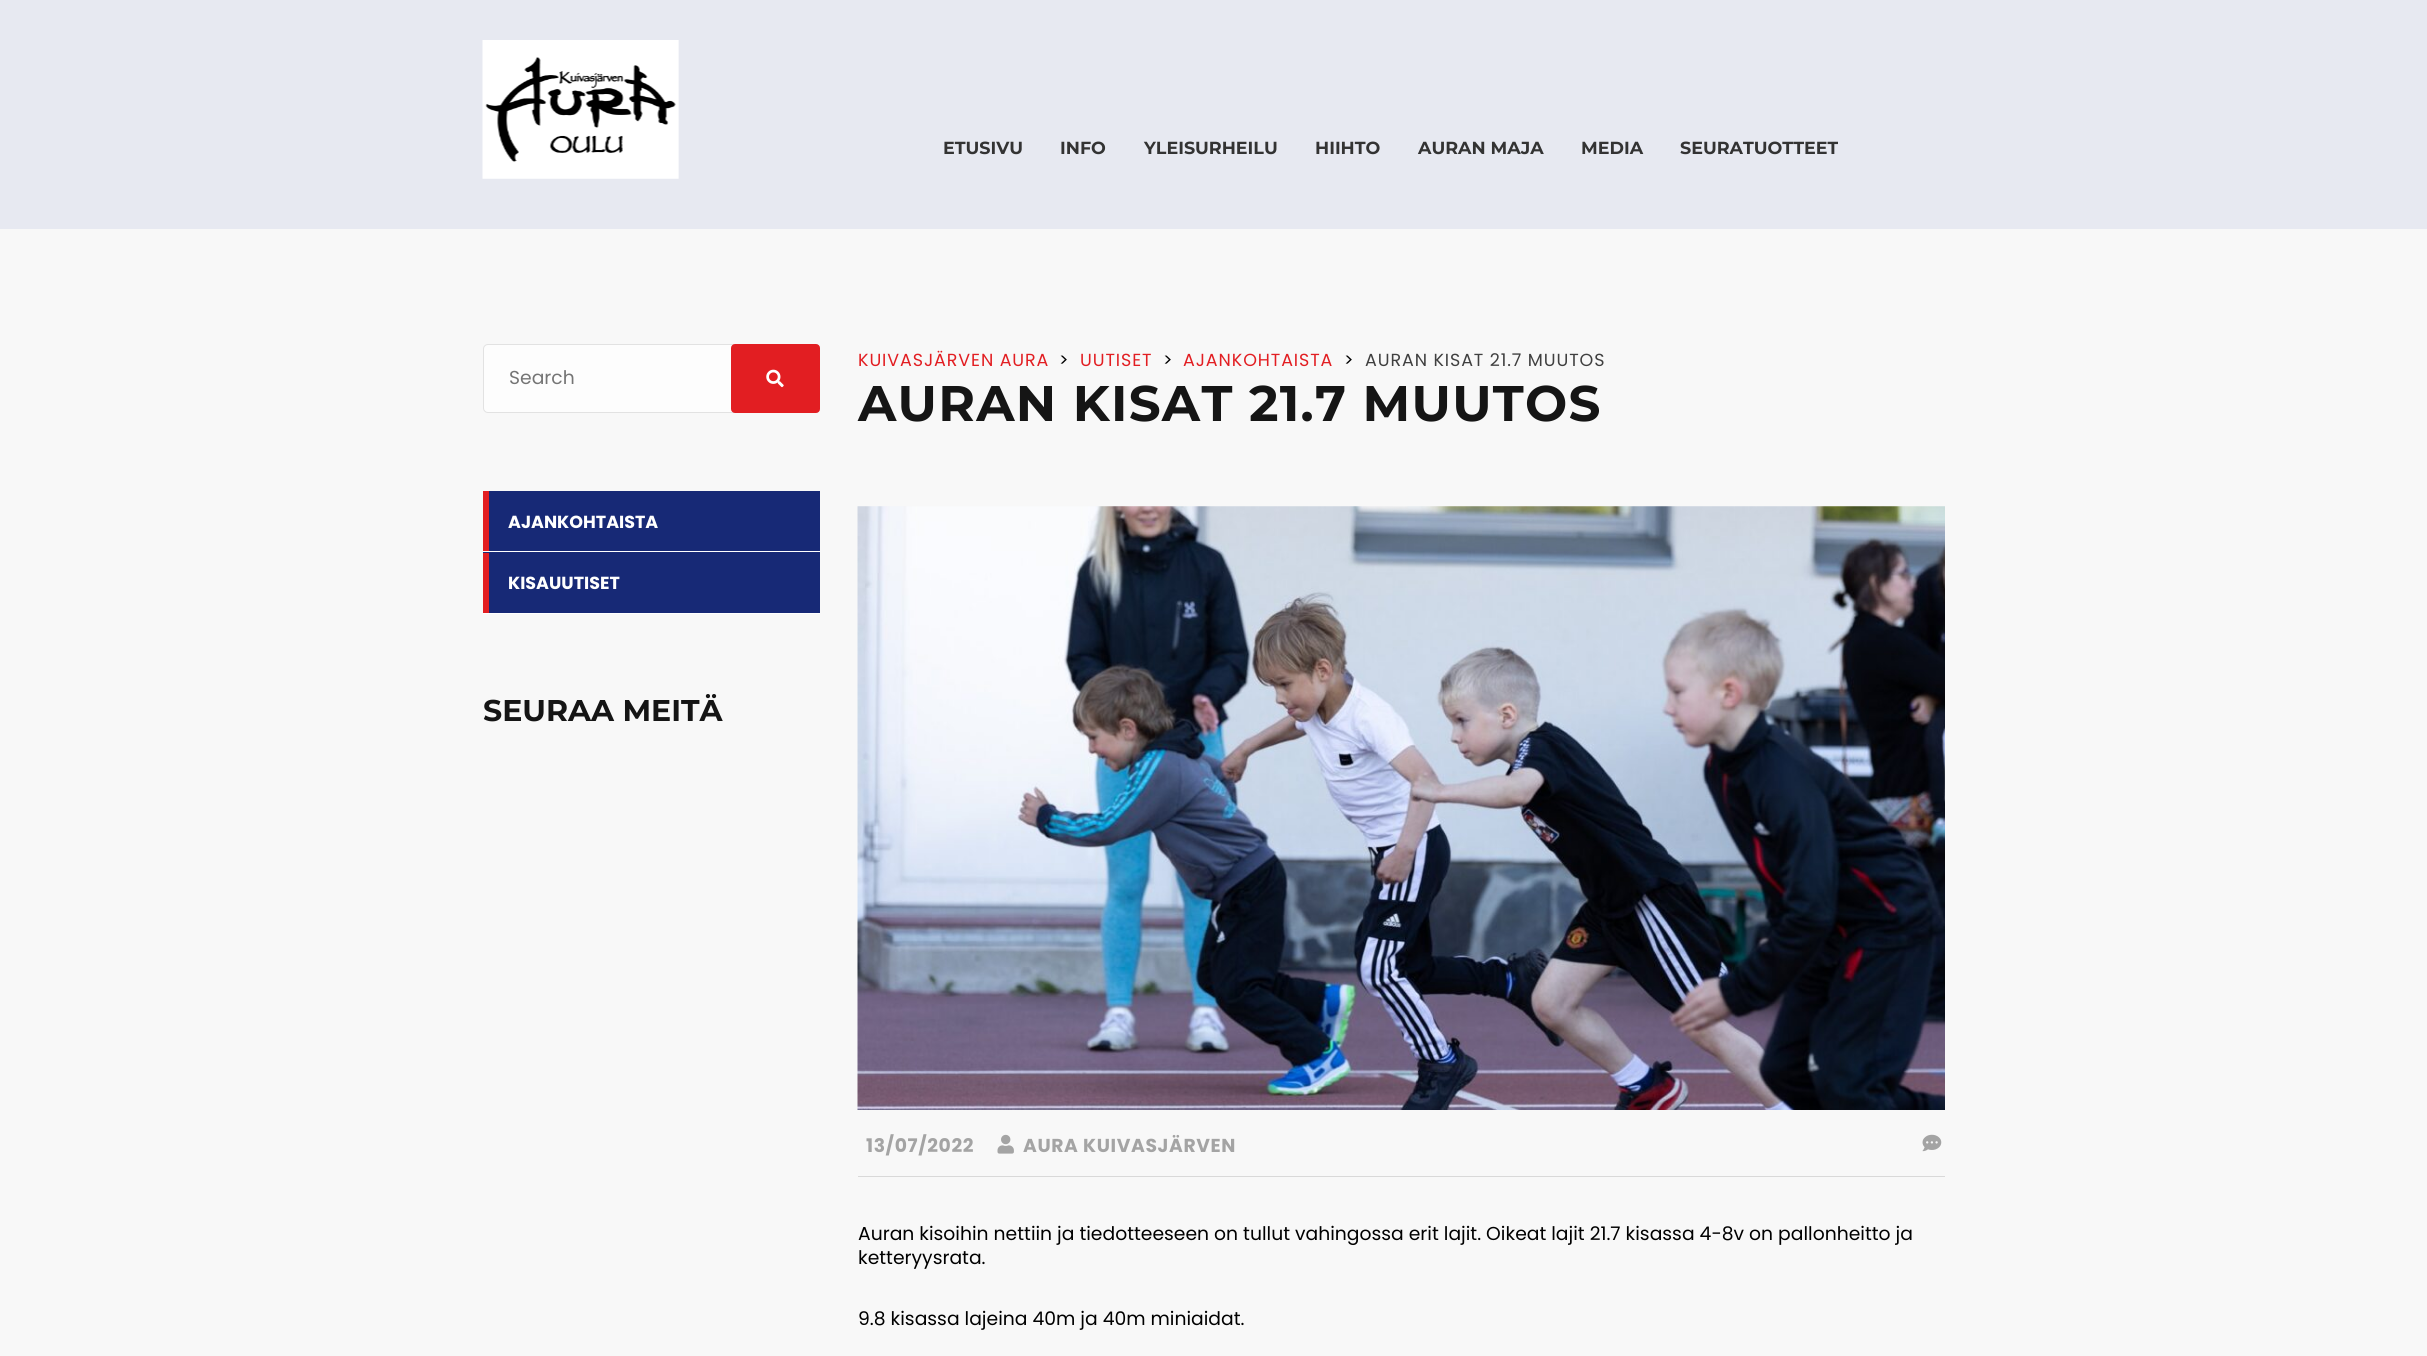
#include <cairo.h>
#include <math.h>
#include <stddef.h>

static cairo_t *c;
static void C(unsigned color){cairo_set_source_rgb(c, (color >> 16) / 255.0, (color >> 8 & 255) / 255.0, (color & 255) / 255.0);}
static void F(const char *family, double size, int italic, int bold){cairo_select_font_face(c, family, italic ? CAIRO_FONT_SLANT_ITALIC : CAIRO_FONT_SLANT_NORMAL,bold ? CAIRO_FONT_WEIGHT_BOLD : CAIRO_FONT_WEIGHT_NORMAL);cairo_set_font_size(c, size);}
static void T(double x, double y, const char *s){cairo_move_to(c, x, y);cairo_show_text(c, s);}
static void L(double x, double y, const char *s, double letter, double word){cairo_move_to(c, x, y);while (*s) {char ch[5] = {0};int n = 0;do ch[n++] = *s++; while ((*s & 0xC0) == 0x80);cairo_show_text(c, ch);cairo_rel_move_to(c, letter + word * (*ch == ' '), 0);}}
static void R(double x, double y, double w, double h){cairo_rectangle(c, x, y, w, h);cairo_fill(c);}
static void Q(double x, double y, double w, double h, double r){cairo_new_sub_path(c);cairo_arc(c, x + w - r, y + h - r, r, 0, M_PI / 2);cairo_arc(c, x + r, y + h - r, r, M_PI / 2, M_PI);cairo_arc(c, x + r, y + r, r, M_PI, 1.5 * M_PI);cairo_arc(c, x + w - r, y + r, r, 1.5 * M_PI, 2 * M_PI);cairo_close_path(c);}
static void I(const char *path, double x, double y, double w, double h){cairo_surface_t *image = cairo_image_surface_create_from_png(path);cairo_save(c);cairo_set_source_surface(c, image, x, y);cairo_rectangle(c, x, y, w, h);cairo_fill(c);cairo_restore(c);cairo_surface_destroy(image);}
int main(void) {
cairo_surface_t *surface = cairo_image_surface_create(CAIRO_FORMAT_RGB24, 2427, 1356);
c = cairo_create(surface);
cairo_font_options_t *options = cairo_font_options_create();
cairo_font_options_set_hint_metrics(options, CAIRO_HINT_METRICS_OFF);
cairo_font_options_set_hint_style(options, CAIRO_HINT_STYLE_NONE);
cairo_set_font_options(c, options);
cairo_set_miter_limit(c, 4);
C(0xf8f8f8);
cairo_paint(c);
C(0xe7e9f1);
R(0,0,2427,229);
I("1.png",482,40,197,139);
F("Montserrat",17.5,0,1);
C(0x333333);
T(943,154,"ETUSIVU");
T(1060,154,"INFO");
T(1144,154,"YLEISURHEILU");
T(1315,154,"HIIHTO");
T(1418,154,"AURAN MAJA");
T(1581,154,"MEDIA");
T(1680,154,"SEURATUOTTEET");
C(0xfdfdfd);
Q(483.5,344.5,336,68,4.5);
cairo_fill_preserve(c);
C(0xe2e2e2);
cairo_set_line_width(c,1);
cairo_stroke(c);
F("Poppins",18.75,0,0);
C(0x757575);
T(509,384,"Search");
Q(732.5,345.5,86,66,2.5);
C(0xe21e22);
cairo_set_line_width(c,3);
cairo_stroke(c);
R(734,347,83,63);
I("2.png",766,369,18,19);
C(0x172976);
R(483,491,337,62);
C(0xffffff);
R(483,551,337,1);
C(0xe21e22);
R(483,491,6,60);
F("Poppins",17.5,0,1);
C(0xffffff);
T(508,528,"AJANKOHTAISTA");
C(0x172976);
R(489,553,331,60);
C(0xffffff);
R(483,613,337,1);
C(0xe21e22);
R(483,553,6,60);
C(0xffffff);
T(508,589,"KISAUUTISET");
F("Montserrat",30,0,1);
C(0x151515);
T(483,721,"SEURAA MEITÄ");
F("Poppins",17.5,0,0);
C(0xe21e22);
L(858,366,"KUIVASJÄRVEN AURA",.9,0);
C(0x000000);
L(1059,366,">",.9,0);
C(0xe21e22);
L(1080,366,"UUTISET",.9,0);
C(0x000000);
L(1163,366,">",.9,0);
C(0xe21e22);
L(1183,366,"AJANKOHTAISTA",.9,0);
C(0x000000);
L(1344,366,">",.9,0);
C(0x404040);
L(1365,366,"AURAN KISAT 21.7 MUUTOS",.9,0);
F("Montserrat",50,0,1);
C(0x151515);
L(858,421,"AURAN KISAT 21.7 MUUTOS",1.25,0);
I("3.png",857,506,1088,604);
C(0xd9d9d9);
R(858,1176,1087,1);
F("Poppins",18.75,0,1);
C(0xa4a4a4);
L(866,1152,"13/07/2022",.6,0);
I("4.png",997,1134,17,20);
L(1023,1152,"AURA KUIVASJÄRVEN",.6,0);
I("5.png",1922,1134,20,18);
F("Poppins",18.75,0,0);
C(0x000000);
T(858,1240,"Auran kisoihin nettiin ja tiedotteeseen on tullut vahingossa erit lajit. Oikeat lajit 21.7 kisassa 4-8v on pallonheitto ja");
T(858,1264,"ketteryysrata.");
T(858,1325,"9.8 kisassa lajeina 40m ja 40m miniaidat.");
cairo_surface_write_to_png(surface, "o.png");
cairo_font_options_destroy(options);
cairo_destroy(c);
cairo_surface_destroy(surface);
return 0;
}
